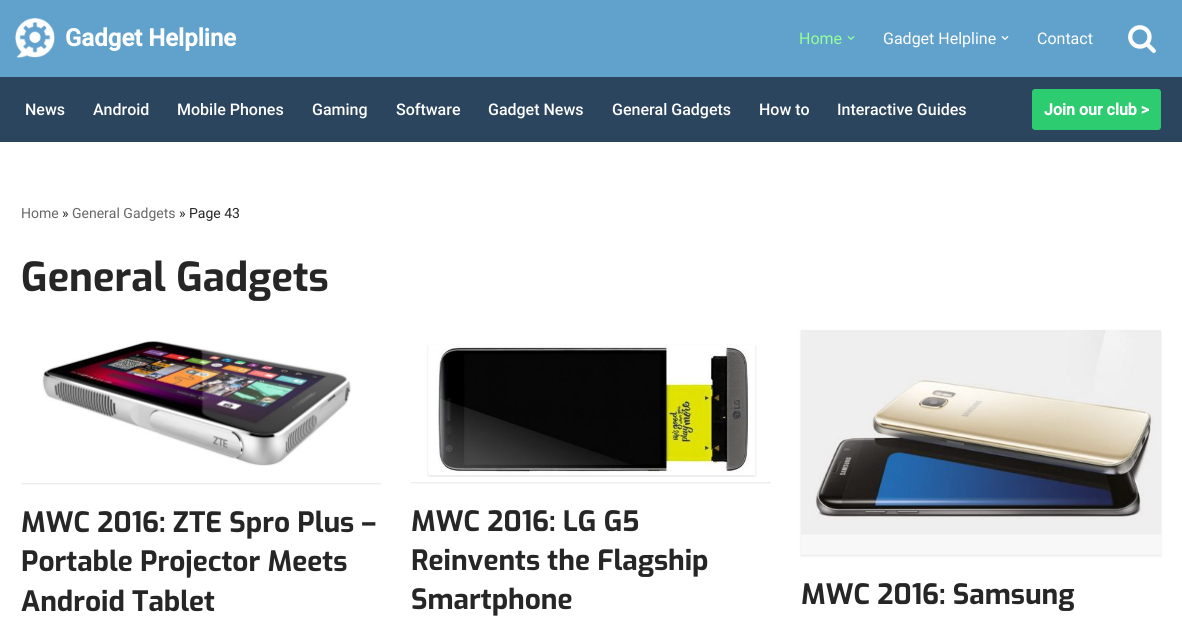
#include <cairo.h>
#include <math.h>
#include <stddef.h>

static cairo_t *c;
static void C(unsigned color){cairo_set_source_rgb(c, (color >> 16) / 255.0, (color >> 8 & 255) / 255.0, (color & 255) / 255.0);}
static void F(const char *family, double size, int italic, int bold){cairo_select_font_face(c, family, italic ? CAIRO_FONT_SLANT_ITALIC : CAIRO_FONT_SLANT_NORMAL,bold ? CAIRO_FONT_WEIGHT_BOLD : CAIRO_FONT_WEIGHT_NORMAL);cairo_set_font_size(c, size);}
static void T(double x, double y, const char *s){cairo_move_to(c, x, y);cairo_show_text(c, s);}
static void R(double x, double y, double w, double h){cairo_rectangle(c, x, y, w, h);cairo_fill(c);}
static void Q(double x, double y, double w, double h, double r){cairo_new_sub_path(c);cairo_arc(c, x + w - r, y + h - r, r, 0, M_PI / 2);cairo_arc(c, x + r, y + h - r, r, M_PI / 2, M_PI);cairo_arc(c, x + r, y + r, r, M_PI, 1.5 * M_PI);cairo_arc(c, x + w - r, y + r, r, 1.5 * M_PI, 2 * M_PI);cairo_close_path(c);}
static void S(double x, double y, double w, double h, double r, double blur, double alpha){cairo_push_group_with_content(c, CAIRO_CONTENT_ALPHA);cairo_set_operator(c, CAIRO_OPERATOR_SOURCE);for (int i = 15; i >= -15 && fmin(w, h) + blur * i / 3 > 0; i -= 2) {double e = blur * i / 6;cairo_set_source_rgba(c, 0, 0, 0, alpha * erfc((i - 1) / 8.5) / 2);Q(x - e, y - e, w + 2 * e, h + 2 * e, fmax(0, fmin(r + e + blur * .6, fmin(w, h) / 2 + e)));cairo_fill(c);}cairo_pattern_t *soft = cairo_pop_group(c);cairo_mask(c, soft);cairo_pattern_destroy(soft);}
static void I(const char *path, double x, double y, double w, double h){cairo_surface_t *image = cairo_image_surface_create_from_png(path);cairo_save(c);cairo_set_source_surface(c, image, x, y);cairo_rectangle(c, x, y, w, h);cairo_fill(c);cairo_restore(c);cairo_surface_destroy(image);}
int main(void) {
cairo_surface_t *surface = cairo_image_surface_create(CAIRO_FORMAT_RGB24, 1182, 620);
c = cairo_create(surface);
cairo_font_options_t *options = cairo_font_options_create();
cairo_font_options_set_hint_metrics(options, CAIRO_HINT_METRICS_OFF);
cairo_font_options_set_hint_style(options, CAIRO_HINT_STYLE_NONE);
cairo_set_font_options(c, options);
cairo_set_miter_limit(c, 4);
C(0xffffff);
cairo_paint(c);
C(0x61a2cd);
R(0,0,1182,77);
I("1.png",15,18,40,40);
F("Roboto",24,0,1);
C(0xfefefe);
T(65,46,"Gadget Helpline");
F("Roboto",16,0,0);
C(0x97ff97);
T(799,44,"Home");
I("2.png",847,36,8,4);
C(0xfefefe);
T(883,44,"Gadget Helpline");
I("3.png",1001,36,8,4);
T(1037,44,"Contact");
I("4.png",1128,25,28,28);
C(0x2c455f);
R(0,77,1182,65);
F("Roboto Medium",16,0,0);
C(0xfefefe);
T(25,115,"News");
T(93,115,"Android");
T(177,115,"Mobile Phones");
T(312,115,"Gaming");
T(396,115,"Software");
T(488,115,"Gadget News");
T(612,115,"General Gadgets");
T(759,115,"How to");
T(837,115,"Interactive Guides");
C(0x2ecc71);
Q(1032,89,129,41,3);
cairo_fill(c);
F("Roboto",16,0,1);
C(0xfefefe);
T(1044,115,"Join our club >");
F("Roboto",14,0,0);
C(0x676767);
T(21,218,"Home");
C(0x272626);
T(62,218,"»");
C(0x676767);
T(72,218,"General Gadgets");
C(0x272626);
T(179,218,"» Page 43");
F("Exo",40,0,1);
T(21,291,"General Gadgets");
cairo_save(c);
cairo_rectangle(c,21,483,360,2);
cairo_clip(c);
C(0x000000);
S(21,331,360,153,0,1,.1);
cairo_restore(c);
I("5.png",42,340,309,126);
F("Exo",28,0,1);
T(21,532,"MWC 2016: ZTE Spro Plus –");
T(21,571,"Portable Projector Meets");
T(21,611,"Android Tablet");
cairo_save(c);
cairo_rectangle(c,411,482,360,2);
cairo_clip(c);
C(0x000000);
S(411,331,360,152,0,1,.1);
cairo_restore(c);
I("6.png",427,344,330,133);
T(411,531,"MWC 2016: LG G5");
T(411,570,"Reinvents the Flagship");
T(411,609,"Smartphone");
C(0x000000);
S(801,331,360,225,0,1,.1);
I("7.png",801,330,360,225);
C(0x272626);
T(801,604,"MWC 2016: Samsung");
cairo_surface_write_to_png(surface, "o.png");
cairo_font_options_destroy(options);
cairo_destroy(c);
cairo_surface_destroy(surface);
return 0;
}
